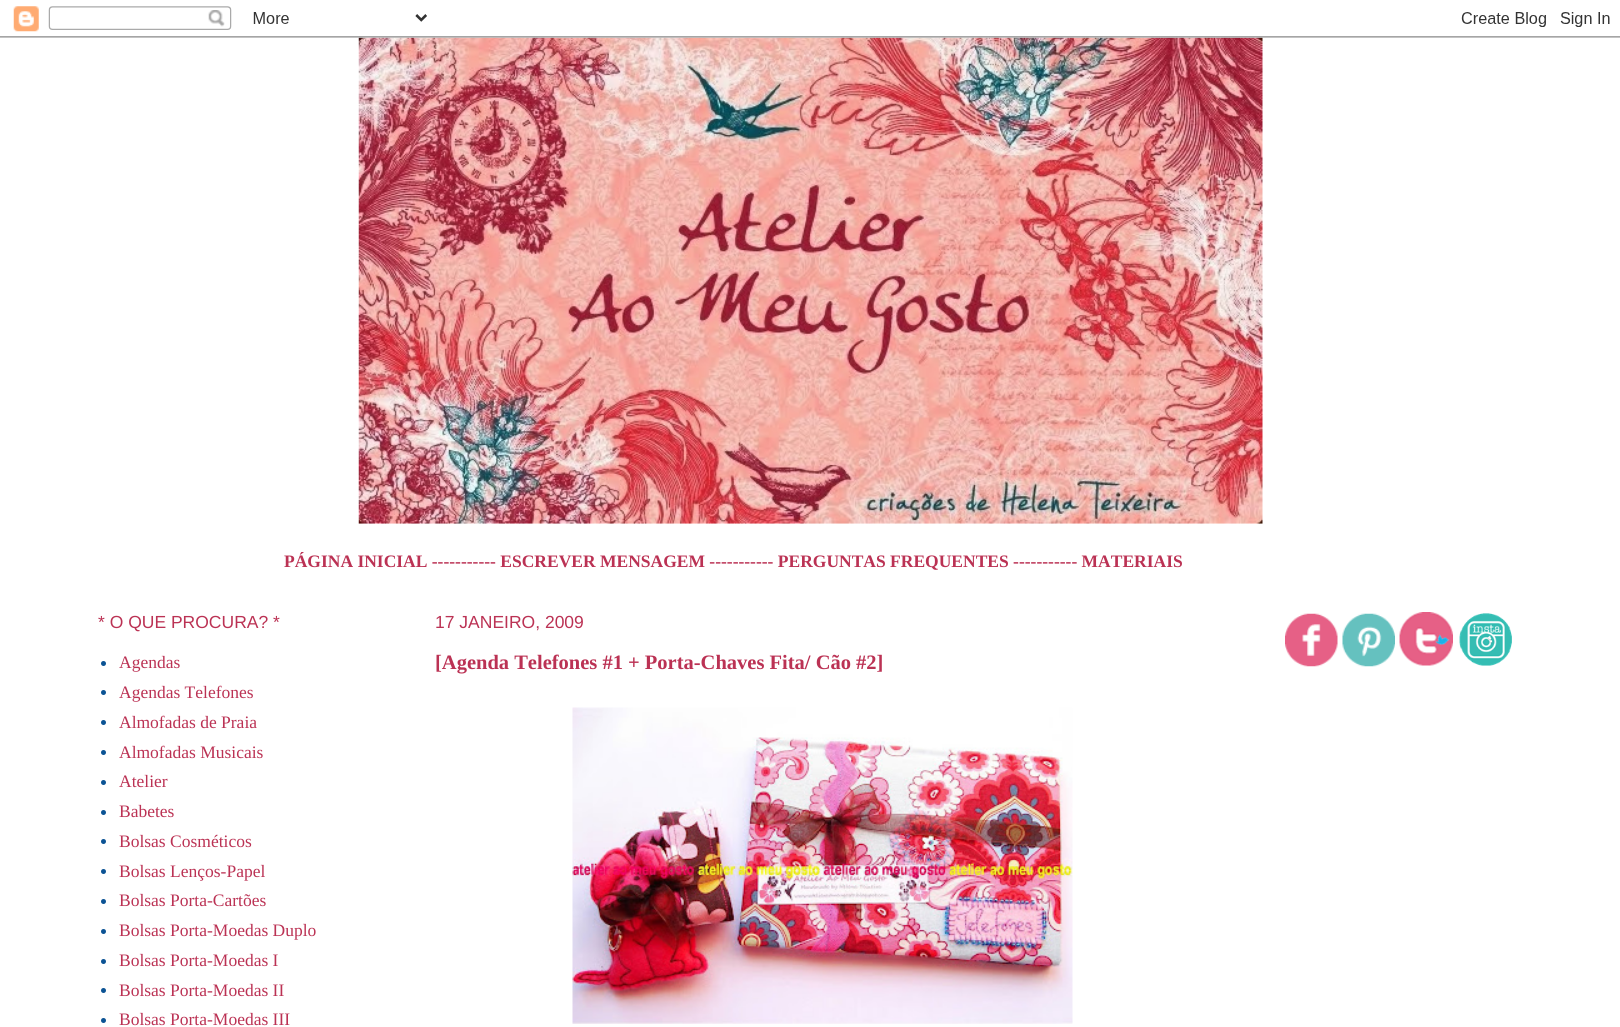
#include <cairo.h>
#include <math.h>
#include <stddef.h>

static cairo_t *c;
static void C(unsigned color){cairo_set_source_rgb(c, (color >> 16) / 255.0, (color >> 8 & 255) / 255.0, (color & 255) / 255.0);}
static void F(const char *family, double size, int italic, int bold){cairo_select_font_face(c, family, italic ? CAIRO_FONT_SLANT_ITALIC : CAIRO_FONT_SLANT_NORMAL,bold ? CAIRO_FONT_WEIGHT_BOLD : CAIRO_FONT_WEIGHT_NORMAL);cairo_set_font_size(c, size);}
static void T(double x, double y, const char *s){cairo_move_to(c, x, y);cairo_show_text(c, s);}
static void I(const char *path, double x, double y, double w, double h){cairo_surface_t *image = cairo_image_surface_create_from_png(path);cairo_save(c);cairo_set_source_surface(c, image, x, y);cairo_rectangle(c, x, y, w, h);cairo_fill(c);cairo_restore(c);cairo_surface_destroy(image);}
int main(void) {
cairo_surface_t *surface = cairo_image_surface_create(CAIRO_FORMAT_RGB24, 1620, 1027);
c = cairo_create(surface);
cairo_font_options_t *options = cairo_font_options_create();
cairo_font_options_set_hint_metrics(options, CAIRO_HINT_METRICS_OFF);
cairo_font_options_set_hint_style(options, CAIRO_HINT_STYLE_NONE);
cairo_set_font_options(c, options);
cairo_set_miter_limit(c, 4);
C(0xffffff);
cairo_paint(c);
I("2.png",358,37,905,487);
I("1.png",0,6,1620,32);
F("Liberation Serif",17.5,0,1);
C(0xbb3254);
T(284,567,"PÁGINA INICIAL ----------- ESCREVER MENSAGEM ----------- PERGUNTAS FREQUENTES ----------- MATERIAIS");
F("Liberation Sans",17.5,0,0);
T(98,628,"* O QUE PROCURA? *");
C(0x0b5394);
cairo_new_path(c);
cairo_arc(c,103.5,663.5,2.5,0,2 * M_PI);
cairo_fill(c);
F("Liberation Serif",17.5,0,0);
C(0xbb3254);
T(119,668,"Agendas");
C(0x0b5394);
cairo_new_path(c);
cairo_arc(c,103.5,692.5,2.5,0,2 * M_PI);
cairo_fill(c);
C(0xbb3254);
T(119,698,"Agendas Telefones");
C(0x0b5394);
cairo_new_path(c);
cairo_arc(c,103.5,722.5,2.5,0,2 * M_PI);
cairo_fill(c);
C(0xbb3254);
T(119,728,"Almofadas de Praia");
C(0x0b5394);
cairo_new_path(c);
cairo_arc(c,103.5,752.5,2.5,0,2 * M_PI);
cairo_fill(c);
C(0xbb3254);
T(119,758,"Almofadas Musicais");
C(0x0b5394);
cairo_new_path(c);
cairo_arc(c,103.5,782.5,2.5,0,2 * M_PI);
cairo_fill(c);
C(0xbb3254);
T(119,787,"Atelier");
C(0x0b5394);
cairo_new_path(c);
cairo_arc(c,103.5,812.5,2.5,0,2 * M_PI);
cairo_fill(c);
C(0xbb3254);
T(119,817,"Babetes");
C(0x0b5394);
cairo_new_path(c);
cairo_arc(c,103.5,841.5,2.5,0,2 * M_PI);
cairo_fill(c);
C(0xbb3254);
T(119,847,"Bolsas Cosméticos");
C(0x0b5394);
cairo_new_path(c);
cairo_arc(c,103.5,871.5,2.5,0,2 * M_PI);
cairo_fill(c);
C(0xbb3254);
T(119,877,"Bolsas Lenços-Papel");
C(0x0b5394);
cairo_new_path(c);
cairo_arc(c,103.5,901.5,2.5,0,2 * M_PI);
cairo_fill(c);
C(0xbb3254);
T(119,906,"Bolsas Porta-Cartões");
C(0x0b5394);
cairo_new_path(c);
cairo_arc(c,103.5,931.5,2.5,0,2 * M_PI);
cairo_fill(c);
C(0xbb3254);
T(119,936,"Bolsas Porta-Moedas Duplo");
C(0x0b5394);
cairo_new_path(c);
cairo_arc(c,103.5,961.5,2.5,0,2 * M_PI);
cairo_fill(c);
C(0xbb3254);
T(119,966,"Bolsas Porta-Moedas I");
C(0x0b5394);
cairo_new_path(c);
cairo_arc(c,103.5,990.5,2.5,0,2 * M_PI);
cairo_fill(c);
C(0xbb3254);
T(119,996,"Bolsas Porta-Moedas II");
C(0x0b5394);
cairo_new_path(c);
cairo_arc(c,103.5,1020.5,2.5,0,2 * M_PI);
cairo_fill(c);
C(0xbb3254);
T(119,1025,"Bolsas Porta-Moedas III");
F("Liberation Sans",17.5,0,0);
T(435,628,"17 JANEIRO, 2009");
F("Liberation Serif",20.5,0,1);
T(435,669,"[Agenda Telefones #1 + Porta-Chaves Fita/ Cão #2]");
I("3.png",572,707,501,317);
I("4.png",1285,613,53,54);
I("5.png",1342,613,53,54);
I("6.png",1399,612,54,54);
I("7.png",1459,613,53,53);
cairo_surface_write_to_png(surface, "o.png");
cairo_font_options_destroy(options);
cairo_destroy(c);
cairo_surface_destroy(surface);
return 0;
}
